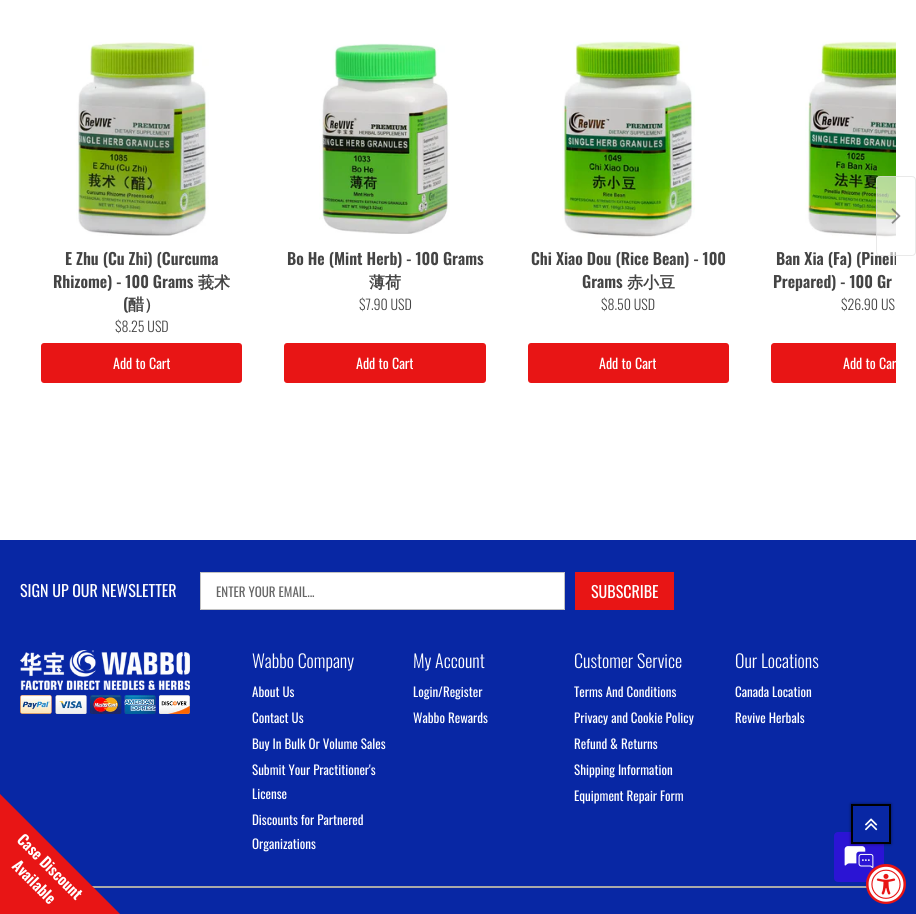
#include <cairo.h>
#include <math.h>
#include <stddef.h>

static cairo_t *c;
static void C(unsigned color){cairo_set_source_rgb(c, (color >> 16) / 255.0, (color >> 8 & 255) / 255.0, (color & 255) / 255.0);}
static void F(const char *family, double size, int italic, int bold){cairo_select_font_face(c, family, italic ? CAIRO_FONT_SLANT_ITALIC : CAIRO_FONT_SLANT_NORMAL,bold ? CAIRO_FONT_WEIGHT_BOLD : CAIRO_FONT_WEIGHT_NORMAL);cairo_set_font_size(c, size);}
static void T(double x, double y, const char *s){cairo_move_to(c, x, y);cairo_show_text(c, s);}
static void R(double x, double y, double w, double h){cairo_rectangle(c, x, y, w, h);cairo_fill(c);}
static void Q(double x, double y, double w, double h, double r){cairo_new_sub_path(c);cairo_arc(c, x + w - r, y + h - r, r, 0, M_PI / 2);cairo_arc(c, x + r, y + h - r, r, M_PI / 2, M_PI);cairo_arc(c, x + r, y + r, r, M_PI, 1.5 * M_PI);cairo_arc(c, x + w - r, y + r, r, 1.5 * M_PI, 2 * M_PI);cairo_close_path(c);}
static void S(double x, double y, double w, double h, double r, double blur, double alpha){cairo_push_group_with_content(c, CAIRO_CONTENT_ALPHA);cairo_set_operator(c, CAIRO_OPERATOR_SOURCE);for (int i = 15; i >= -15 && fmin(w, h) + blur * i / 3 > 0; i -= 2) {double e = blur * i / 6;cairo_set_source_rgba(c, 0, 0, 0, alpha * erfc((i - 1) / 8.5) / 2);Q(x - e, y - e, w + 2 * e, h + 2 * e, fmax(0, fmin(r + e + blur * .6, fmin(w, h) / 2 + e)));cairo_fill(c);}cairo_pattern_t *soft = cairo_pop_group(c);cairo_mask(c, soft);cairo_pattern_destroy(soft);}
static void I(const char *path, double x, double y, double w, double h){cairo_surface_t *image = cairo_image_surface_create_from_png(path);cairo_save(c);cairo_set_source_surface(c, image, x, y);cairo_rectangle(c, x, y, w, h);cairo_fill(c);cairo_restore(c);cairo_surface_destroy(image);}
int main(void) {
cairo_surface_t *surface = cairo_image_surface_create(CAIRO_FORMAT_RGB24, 916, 914);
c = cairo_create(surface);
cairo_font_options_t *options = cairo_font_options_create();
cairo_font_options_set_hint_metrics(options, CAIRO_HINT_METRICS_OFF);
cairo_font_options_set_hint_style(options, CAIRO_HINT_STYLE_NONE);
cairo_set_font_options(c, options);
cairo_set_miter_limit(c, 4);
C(0xffffff);
cairo_paint(c);
I("5.png",805,41,91,197);
cairo_save(c);
cairo_rectangle(c,771,247,125,45);
cairo_clip(c);
F("Oswald SemiBold",16,0,0);
C(0x444444);
T(776,265,"Ban Xia (Fa) (Pinell");
cairo_restore(c);
cairo_set_source_rgba(c,1,1,1,0.6);
Q(876,176,40,80,4);
cairo_fill(c);
Q(876.5,176.5,39,79,3.5);
cairo_set_source_rgba(c,0.855,0.855,0.855,0.6);
cairo_set_line_width(c,1);
cairo_stroke(c);
I("1.png",891,208,10,16);
I("2.png",76,42,133,194);
F("Oswald SemiBold",16,0,0);
C(0x444444);
T(65,265,"E Zhu (Cu Zhi) (Curcuma");
T(53,288,"Rhizome) - 100 Grams");
F("WenQuanYi Zen Hei",16,0,1);
T(198,288,"莪术");
F("Oswald SemiBold",16,0,0);
T(123,310,"(");
F("WenQuanYi Zen Hei",16,0,1);
T(128,310,"醋）");
F("Oswald Light",14,0,0);
T(115,332,"$8.25 USD");
C(0xe81515);
Q(41,343,201,40,3);
cairo_fill(c);
F("Oswald",14,0,0);
C(0xffffff);
T(113,369,"Add to Cart");
I("3.png",319,43,131,191);
F("Oswald SemiBold",16,0,0);
C(0x444444);
T(287,265,"Bo He (Mint Herb) - 100 Grams");
F("WenQuanYi Zen Hei",16,0,1);
T(369,288,"薄荷");
F("Oswald Light",14,0,0);
T(359,310,"$7.90 USD");
C(0xe81515);
Q(284,343,202,40,3);
cairo_fill(c);
F("Oswald",14,0,0);
C(0xffffff);
T(356,369,"Add to Cart");
I("4.png",562,41,133,197);
F("Oswald SemiBold",16,0,0);
C(0x444444);
T(531,265,"Chi Xiao Dou (Rice Bean) - 100");
T(582,288,"Grams");
F("WenQuanYi Zen Hei",16,0,1);
T(627,288,"赤小豆");
F("Oswald Light",14,0,0);
T(601,310,"$8.50 USD");
C(0xe81515);
Q(528,343,201,40,3);
cairo_fill(c);
F("Oswald",14,0,0);
C(0xffffff);
T(599,369,"Add to Cart");
F("Oswald SemiBold",16,0,0);
C(0x444444);
T(773,288,"Prepared) - 100 Gr");
F("Oswald Light",14,0,0);
T(841,310,"$26.90 US");
C(0xe81515);
cairo_new_path(c);
cairo_move_to(c,774,343);
cairo_line_to(c,896,343);
cairo_line_to(c,896,383);
cairo_line_to(c,774,383);
cairo_curve_to(c,772.5,383,771,381.5,771,380);
cairo_line_to(c,771,346);
cairo_curve_to(c,771,344.5,772.5,343,774,343);
cairo_close_path(c);
cairo_fill(c);
F("Oswald",14,0,0);
C(0xffffff);
T(843,369,"Add to Car");
C(0x0827a4);
R(0,540,916,374);
F("Oswald",16,0,0);
C(0xffffff);
T(20,597,"SIGN UP OUR NEWSLETTER");
cairo_rectangle(c,200.5,572.5,364,37);
cairo_fill_preserve(c);
C(0xc2c2c2);
cairo_stroke(c);
F("Oswald",13,0,0);
C(0x666666);
T(216,597,"ENTER YOUR EMAIL...");
C(0xe81515);
R(575,572,99,38);
F("Oswald",16,0,0);
C(0xffffff);
T(591,598,"SUBSCRIBE");
I("6.png",20,650,170,40);
I("7.png",20,695,170,19);
F("Oswald Light",18,0,0);
T(252,668,"Wabbo Company");
F("Oswald",13,0,0);
T(252,697,"About Us");
T(252,723,"Contact Us");
T(252,749,"Buy In Bulk Or Volume Sales");
T(252,775,"Submit Your Practitioner's");
T(252,799,"License");
T(252,825,"Discounts for Partnered");
T(252,849,"Organizations");
F("Oswald Light",18,0,0);
T(413,668,"My Account");
F("Oswald",13,0,0);
T(413,697,"Login/Register");
T(413,723,"Wabbo Rewards");
F("Oswald Light",18,0,0);
T(574,668,"Customer Service");
F("Oswald",13,0,0);
T(574,697,"Terms And Conditions");
T(574,723,"Privacy and Cookie Policy");
T(574,749,"Refund & Returns");
T(574,775,"Shipping Information");
T(574,801,"Equipment Repair Form");
F("Oswald Light",18,0,0);
T(735,668,"Our Locations");
F("Oswald",13,0,0);
T(735,697,"Canada Location");
T(735,723,"Revive Herbals");
C(0xa9a9a9);
R(92,886,775,2);
C(0x2b14d4);
Q(834,832,50,50,4);
cairo_fill(c);
I("9.png",844,846,30,22);
C(0x000000);
S(851,804,40,40,0,1.5,.5);
C(0x0827a4);
cairo_rectangle(c,852,805,38,38);
cairo_fill_preserve(c);
C(0x000000);
cairo_set_line_width(c,2);
cairo_stroke(c);
I("8.png",865,818,13,13);
C(0xe81515);
cairo_new_path(c);
cairo_move_to(c,120,914);
cairo_line_to(c,-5,914);
cairo_line_to(c,-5,789);
cairo_close_path(c);
cairo_fill(c);
F("Oswald SemiBold",15,0,0);
C(0xffffff);
cairo_save(c);
cairo_translate(c,16,841);
cairo_rotate(c,45 * M_PI / 180);
T(0,0,"Case Discount");
cairo_restore(c);
cairo_save(c);
cairo_translate(c,11,867);
cairo_rotate(c,45 * M_PI / 180);
T(0,0,"Available");
cairo_restore(c);
C(0xe81515);
cairo_new_path(c);
cairo_arc(c,886,884,20,0,2 * M_PI);
cairo_fill(c);
I("10.png",868,866,36,36);
cairo_surface_write_to_png(surface, "o.png");
cairo_font_options_destroy(options);
cairo_destroy(c);
cairo_surface_destroy(surface);
return 0;
}
